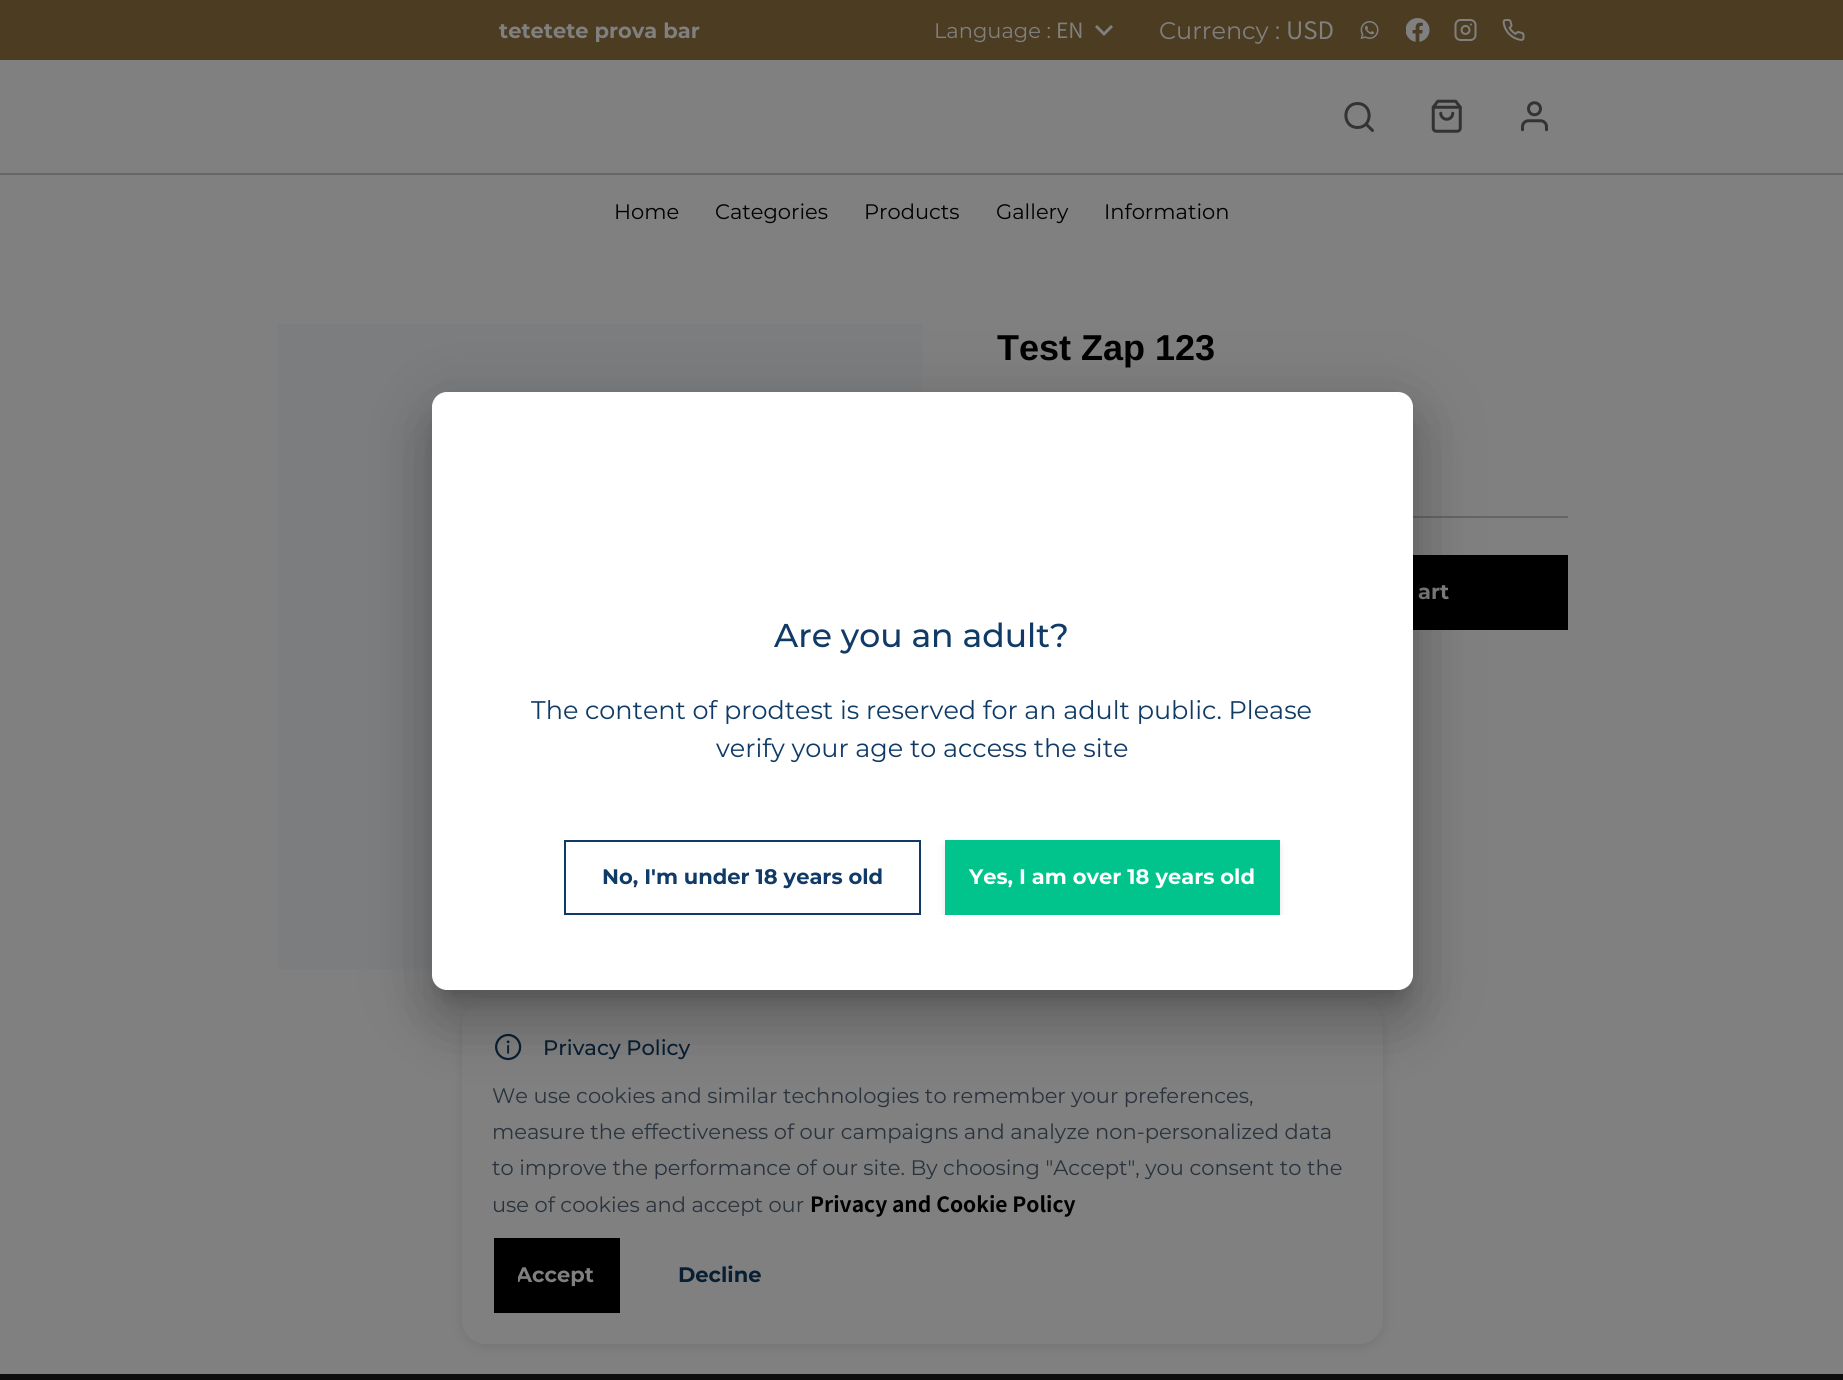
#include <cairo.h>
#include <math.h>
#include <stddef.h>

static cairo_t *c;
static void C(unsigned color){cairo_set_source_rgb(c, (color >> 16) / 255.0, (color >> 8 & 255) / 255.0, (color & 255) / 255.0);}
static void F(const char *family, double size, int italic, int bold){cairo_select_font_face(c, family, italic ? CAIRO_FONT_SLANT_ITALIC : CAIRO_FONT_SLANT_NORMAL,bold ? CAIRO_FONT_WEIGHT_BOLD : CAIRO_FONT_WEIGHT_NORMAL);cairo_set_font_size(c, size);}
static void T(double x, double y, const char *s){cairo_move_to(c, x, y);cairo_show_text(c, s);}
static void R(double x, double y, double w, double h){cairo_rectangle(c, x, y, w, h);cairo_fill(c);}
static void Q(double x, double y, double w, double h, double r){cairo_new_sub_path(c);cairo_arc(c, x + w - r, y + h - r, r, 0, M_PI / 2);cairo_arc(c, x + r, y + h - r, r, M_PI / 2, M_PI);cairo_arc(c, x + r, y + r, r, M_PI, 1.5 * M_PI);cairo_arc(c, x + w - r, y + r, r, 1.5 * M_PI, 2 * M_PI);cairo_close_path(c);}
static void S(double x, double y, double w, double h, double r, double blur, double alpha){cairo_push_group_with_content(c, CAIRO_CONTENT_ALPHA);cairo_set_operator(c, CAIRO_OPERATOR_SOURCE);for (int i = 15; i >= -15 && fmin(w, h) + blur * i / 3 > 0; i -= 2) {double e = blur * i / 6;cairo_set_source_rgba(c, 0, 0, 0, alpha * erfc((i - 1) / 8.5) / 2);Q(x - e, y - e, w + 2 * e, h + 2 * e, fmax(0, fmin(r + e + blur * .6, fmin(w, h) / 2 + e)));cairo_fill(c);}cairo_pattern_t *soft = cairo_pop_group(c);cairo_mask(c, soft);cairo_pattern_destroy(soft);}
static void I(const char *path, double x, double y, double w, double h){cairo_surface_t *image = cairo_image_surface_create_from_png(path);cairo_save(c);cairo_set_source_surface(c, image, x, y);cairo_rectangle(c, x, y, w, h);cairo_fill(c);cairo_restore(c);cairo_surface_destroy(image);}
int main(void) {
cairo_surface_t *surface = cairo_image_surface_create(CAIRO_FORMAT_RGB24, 1843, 1380);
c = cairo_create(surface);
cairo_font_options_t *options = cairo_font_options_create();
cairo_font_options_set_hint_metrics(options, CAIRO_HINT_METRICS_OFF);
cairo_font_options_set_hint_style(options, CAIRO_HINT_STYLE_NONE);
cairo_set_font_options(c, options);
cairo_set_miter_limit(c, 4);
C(0x808080);
cairo_paint(c);
C(0x4b3c22);
R(0,0,1843,60);
F("Montserrat",21,0,1);
C(0x808080);
T(499,38,"tetetete prova bar");
F("Montserrat",21,0,0);
T(934,38,"Language :");
F("Noto Sans HK",21,0,0);
T(1056,38,"EN");
cairo_new_path(c);
cairo_move_to(c,1111,25);
cairo_line_to(c,1104,32);
cairo_line_to(c,1097,25);
cairo_line_to(c,1095,27);
cairo_line_to(c,1104,36);
cairo_line_to(c,1113,27);
cairo_close_path(c);
cairo_fill(c);
F("Montserrat",24,0,0);
T(1159,39,"Currency :");
F("Noto Sans HK",24,0,0);
T(1286,39,"USD");
I("1.png",1360,21,19,19);
I("2.png",1406,18,24,24);
I("3.png",1454,19,23,22);
I("4.png",1502,19,23,22);
cairo_new_path(c);
cairo_move_to(c,1357.5,127.5);
cairo_curve_to(c,1373,127.5,1373,103.5,1357.5,103.5);
cairo_curve_to(c,1342,103.5,1342,127.5,1357.5,127.5);
cairo_close_path(c);
cairo_move_to(c,1372.5,130.5);
cairo_line_to(c,1366,124);
C(0x333333);
cairo_set_line_width(c,3);
cairo_set_line_cap(c,CAIRO_LINE_CAP_ROUND);
cairo_set_line_join(c,CAIRO_LINE_JOIN_ROUND);
cairo_stroke(c);
I("5.png",1431,99,31,34);
I("6.png",1521,101,27,31);
C(0x666666);
R(0,173,1843,2);
F("Montserrat",21,0,0);
C(0x000000);
T(614,219,"Home");
T(715,219,"Categories");
T(864,219,"Products");
T(996,219,"Gallery");
T(1104,219,"Information");
I("7.png",278,324,644,645);
F("Liberation Sans",36,0,1);
T(997,360,"Test Zap 123");
C(0x626669);
R(1413,516,155,2);
C(0x000000);
R(1413,555,155,75);
F("Montserrat",21,0,1);
C(0x808080);
T(1418,599,"art");
C(0x0d0d0d);
R(0,1374,1843,6);
C(0x000000);
S(462,1004,921,343,24,6,.1);
C(0x808080);
Q(462,1001,921,343,24);
cairo_fill(c);
I("8.png",495,1033,27,28);
F("Montserrat Medium",21,0,0);
C(0x081e33);
T(543,1055,"Privacy Policy");
F("Montserrat",21,0,0);
C(0x2a333d);
T(492,1103,"We use cookies and similar technologies to remember your preferences,");
T(492,1139,"measure the effectiveness of our campaigns and analyze non-personalized data");
T(492,1175,"to improve the performance of our site. By choosing \"Accept\", you consent to the");
T(492,1212,"use of cookies and accept our");
F("Noto Sans HK",21,0,1);
C(0x000000);
T(810,1212,"Privacy and Cookie Policy");
R(494,1238,126,75);
cairo_save(c);
cairo_rectangle(c,518,1260,76,32);
cairo_clip(c);
F("Montserrat",21,0,1);
C(0x808080);
T(516,1282,"Accept");
cairo_restore(c);
F("Montserrat",21,0,1);
C(0x081e33);
T(678,1282,"Decline");
C(0x000000);
S(420,393,1005,623,27,34.5,.12);
S(428,423,990,608,20,28.5,.14);
S(443,419,960,577,5,11,.2);
C(0xffffff);
Q(432,392,981,598,15);
cairo_fill(c);
F("Montserrat Medium",33,0,0);
C(0x103b66);
T(774,647,"Are you an adult?");
F("Montserrat",25.5,0,0);
T(531,719,"The content of prodtest is reserved for an adult public. Please");
T(716,757,"verify your age to access the site");
cairo_rectangle(c,565,841,355,73);
cairo_set_line_width(c,2);
cairo_set_line_cap(c,CAIRO_LINE_CAP_BUTT);
cairo_set_line_join(c,CAIRO_LINE_JOIN_MITER);
cairo_stroke(c);
F("Montserrat",21,0,1);
T(602,884,"No, I'm under 18 years old");
cairo_save(c);
cairo_rectangle(c,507,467,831,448);
cairo_clip(c);
C(0x323247);
S(945,846,335,75,0,6,.06);
S(945,846,335,75,0,3,.08);
cairo_restore(c);
C(0x00c48c);
R(945,840,335,75);
C(0xffffff);
T(969,884,"Yes, I am over 18 years old");
cairo_surface_write_to_png(surface, "o.png");
cairo_font_options_destroy(options);
cairo_destroy(c);
cairo_surface_destroy(surface);
return 0;
}
